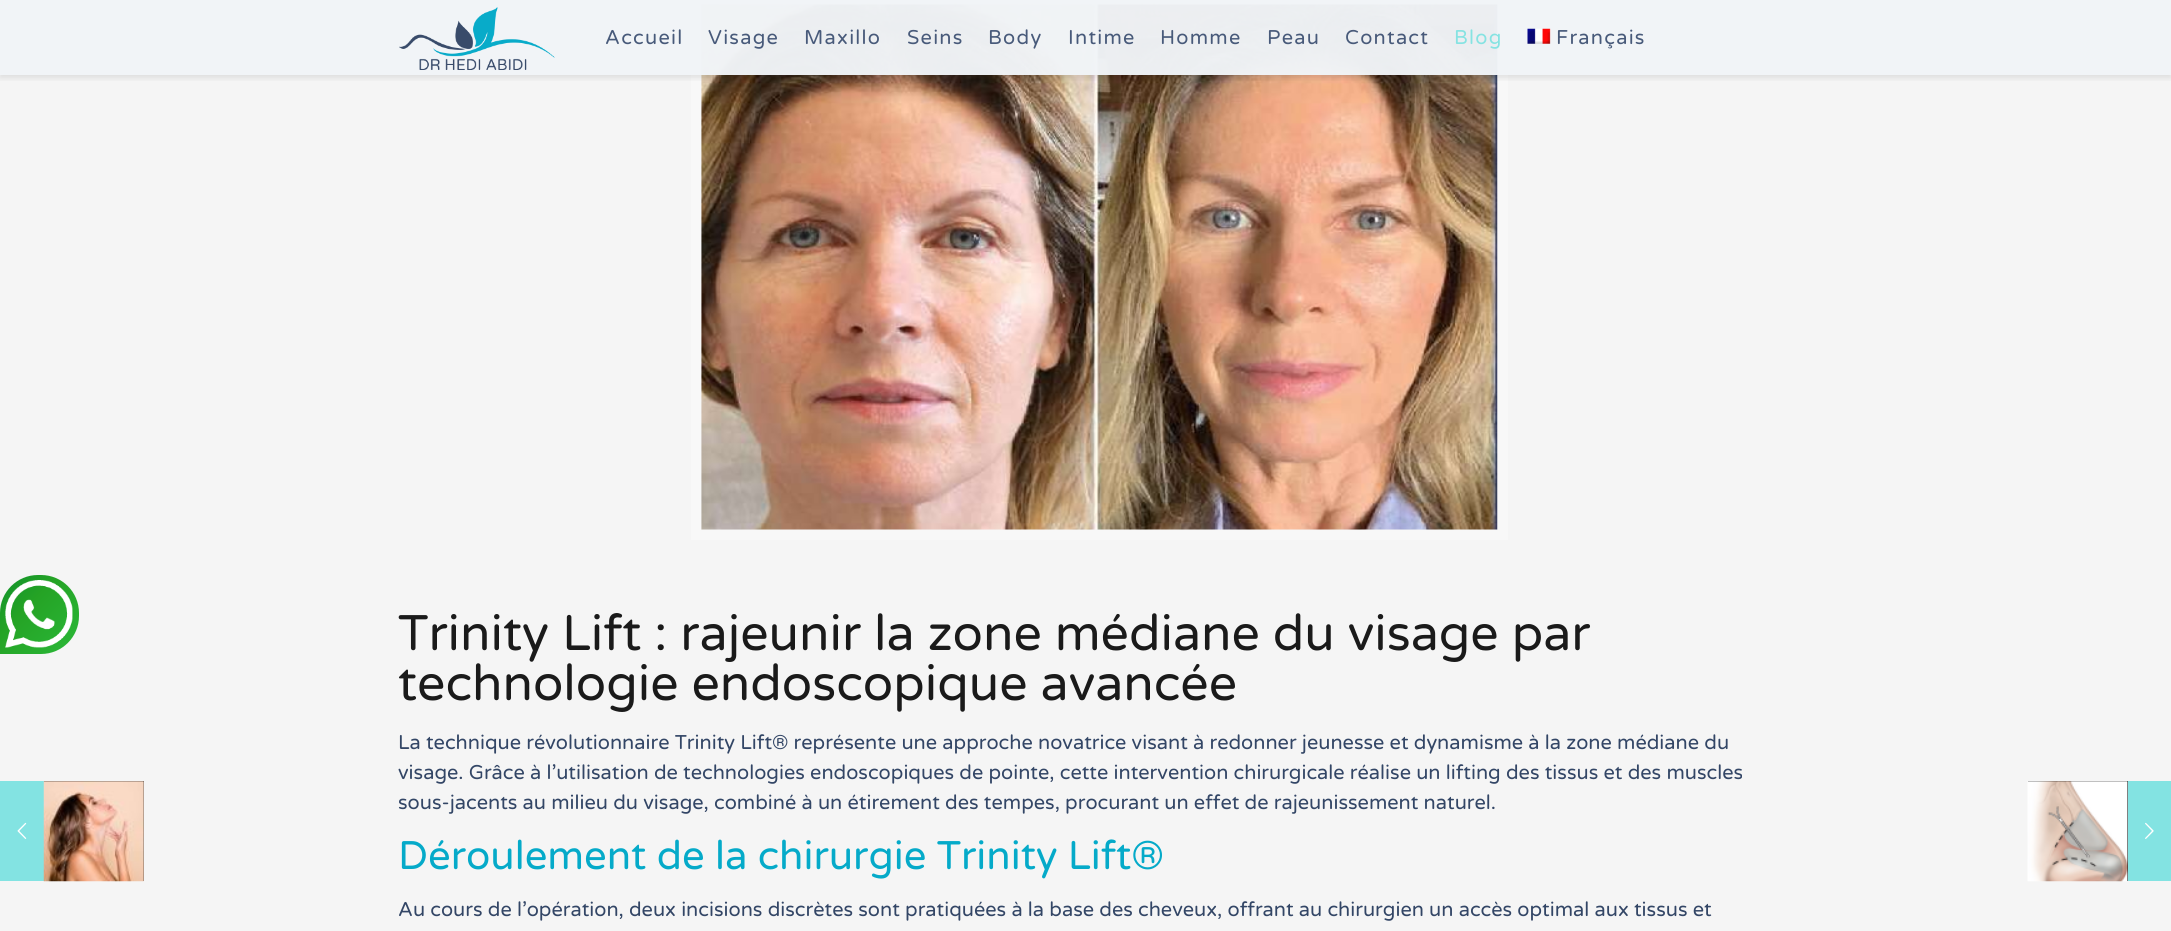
#include <cairo.h>
#include <math.h>
#include <stddef.h>

static cairo_t *c;
static void C(unsigned color){cairo_set_source_rgb(c, (color >> 16) / 255.0, (color >> 8 & 255) / 255.0, (color & 255) / 255.0);}
static void F(const char *family, double size, int italic, int bold){cairo_select_font_face(c, family, italic ? CAIRO_FONT_SLANT_ITALIC : CAIRO_FONT_SLANT_NORMAL,bold ? CAIRO_FONT_WEIGHT_BOLD : CAIRO_FONT_WEIGHT_NORMAL);cairo_set_font_size(c, size);}
static void T(double x, double y, const char *s){cairo_move_to(c, x, y);cairo_show_text(c, s);}
static void L(double x, double y, const char *s, double letter, double word){cairo_move_to(c, x, y);while (*s) {char ch[5] = {0};int n = 0;do ch[n++] = *s++; while ((*s & 0xC0) == 0x80);cairo_show_text(c, ch);cairo_rel_move_to(c, letter + word * (*ch == ' '), 0);}}
static void R(double x, double y, double w, double h){cairo_rectangle(c, x, y, w, h);cairo_fill(c);}
static void Q(double x, double y, double w, double h, double r){cairo_new_sub_path(c);cairo_arc(c, x + w - r, y + h - r, r, 0, M_PI / 2);cairo_arc(c, x + r, y + h - r, r, M_PI / 2, M_PI);cairo_arc(c, x + r, y + r, r, M_PI, 1.5 * M_PI);cairo_arc(c, x + w - r, y + r, r, 1.5 * M_PI, 2 * M_PI);cairo_close_path(c);}
static void S(double x, double y, double w, double h, double r, double blur, double alpha){cairo_push_group_with_content(c, CAIRO_CONTENT_ALPHA);cairo_set_operator(c, CAIRO_OPERATOR_SOURCE);for (int i = 15; i >= -15 && fmin(w, h) + blur * i / 3 > 0; i -= 2) {double e = blur * i / 6;cairo_set_source_rgba(c, 0, 0, 0, alpha * erfc((i - 1) / 8.5) / 2);Q(x - e, y - e, w + 2 * e, h + 2 * e, fmax(0, fmin(r + e + blur * .6, fmin(w, h) / 2 + e)));cairo_fill(c);}cairo_pattern_t *soft = cairo_pop_group(c);cairo_mask(c, soft);cairo_pattern_destroy(soft);}
static void I(const char *path, double x, double y, double w, double h){cairo_surface_t *image = cairo_image_surface_create_from_png(path);cairo_save(c);cairo_set_source_surface(c, image, x, y);cairo_rectangle(c, x, y, w, h);cairo_fill(c);cairo_restore(c);cairo_surface_destroy(image);}
int main(void) {
cairo_surface_t *surface = cairo_image_surface_create(CAIRO_FORMAT_RGB24, 2171, 931);
c = cairo_create(surface);
cairo_font_options_t *options = cairo_font_options_create();
cairo_font_options_set_hint_metrics(options, CAIRO_HINT_METRICS_OFF);
cairo_font_options_set_hint_style(options, CAIRO_HINT_STYLE_NONE);
cairo_set_font_options(c, options);
cairo_set_miter_limit(c, 4);
cairo_pattern_t *gradient;
C(0xf5f5f5);
cairo_paint(c);
C(0x83e3e2);
R(0,781,44,100);
I("1.png",17,822,10,17);
C(0x000000);
R(44,781,100,100);
I("2.png",43,781,101,101);
cairo_rectangle(c,696,-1,807,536);
C(0xf8f8f8);
cairo_set_line_width(c,10);
cairo_stroke(c);
I("7.png",701,3,797,527);
cairo_save(c);
cairo_rectangle(c,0,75,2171,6);
cairo_clip(c);
C(0x000000);
S(0,3,2171,75,0,3,.1);
cairo_restore(c);
cairo_set_source_rgba(c,0.945,0.957,0.969,0.97);
R(0,0,2171,75);
I("3.png",399,7,156,63);
F("Varela Round",20,0,0);
C(0x485a7a);
L(605,44,"Accueil",1.25,0);
L(708,44,"Visage",1.25,0);
L(804,44,"Maxillo",1.25,0);
L(907,44,"Seins",1.25,0);
L(988,44,"Body",1.25,0);
L(1068,44,"Intime",1.25,0);
L(1160,44,"Homme",1.25,0);
L(1267,44,"Peau",1.25,0);
L(1345,44,"Contact",1.25,0);
C(0x86e3e2);
L(1454,44,"Blog",1.25,0);
I("4.png",1527,28,24,16);
C(0x485a7a);
L(1556,44,"Français",1.25,0);
gradient = cairo_pattern_create_linear(0,575,79,654);
cairo_pattern_add_color_stop_rgba(gradient,0,0.059,0.569,0.173,1);
cairo_pattern_add_color_stop_rgba(gradient,.37,0.145,0.639,0.145,1);
cairo_pattern_add_color_stop_rgba(gradient,1,0.165,0.725,0.224,1);
cairo_set_source(c,gradient);
cairo_pattern_destroy(gradient);
cairo_new_path(c);
cairo_move_to(c,38,575);
cairo_line_to(c,41,575);
cairo_curve_to(c,62,575,79,592,79,613);
cairo_line_to(c,79,616);
cairo_curve_to(c,79,637,62,654,41,654);
cairo_line_to(c,0,654);
cairo_line_to(c,0,613);
cairo_curve_to(c,0,592,17,575,38,575);
cairo_close_path(c);
cairo_fill(c);
I("6.png",23,599,32,31);
I("5.png",5,580,68,68);
F("Varela Round",50,0,0);
C(0x1a1a1a);
T(398,650,"Trinity Lift : rajeunir la zone médiane du visage par");
T(398,700,"technologie endoscopique avancée");
F("Varela Round",20,0,0);
C(0x334666);
T(398,749,"La technique révolutionnaire Trinity Lift® représente une approche novatrice visant à redonner jeunesse et dynamisme à la zone médiane du");
T(398,779,"visage. Grâce à l’utilisation de technologies endoscopiques de pointe, cette intervention chirurgicale réalise un lifting des tissus et des muscles");
T(398,809,"sous-jacents au milieu du visage, combiné à un étirement des tempes, procurant un effet de rajeunissement naturel.");
F("Varela Round",40,0,0);
C(0x05aac9);
T(398,869,"Déroulement de la chirurgie Trinity Lift®");
F("Varela Round",20,0,0);
C(0x334666);
T(398,916,"Au cours de l’opération, deux incisions discrètes sont pratiquées à la base des cheveux, offrant au chirurgien un accès optimal aux tissus et");
C(0x000000);
R(2028,781,100,100);
I("8.png",2027,781,101,101);
C(0x83e3e2);
R(2128,781,43,100);
I("9.png",2145,822,9,17);
cairo_surface_write_to_png(surface, "o.png");
cairo_font_options_destroy(options);
cairo_destroy(c);
cairo_surface_destroy(surface);
return 0;
}
